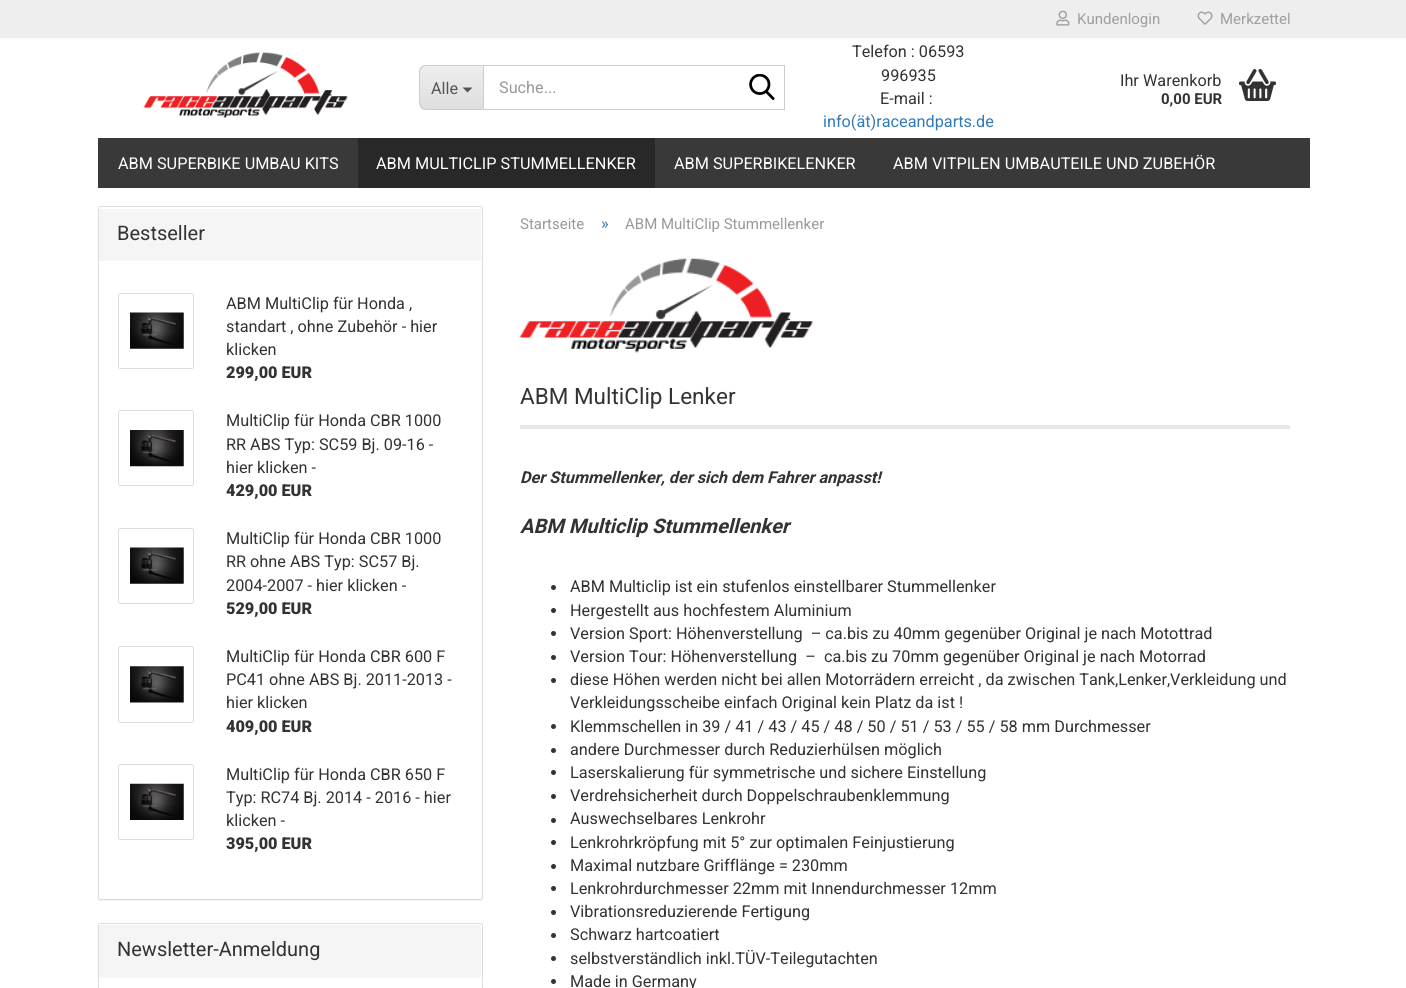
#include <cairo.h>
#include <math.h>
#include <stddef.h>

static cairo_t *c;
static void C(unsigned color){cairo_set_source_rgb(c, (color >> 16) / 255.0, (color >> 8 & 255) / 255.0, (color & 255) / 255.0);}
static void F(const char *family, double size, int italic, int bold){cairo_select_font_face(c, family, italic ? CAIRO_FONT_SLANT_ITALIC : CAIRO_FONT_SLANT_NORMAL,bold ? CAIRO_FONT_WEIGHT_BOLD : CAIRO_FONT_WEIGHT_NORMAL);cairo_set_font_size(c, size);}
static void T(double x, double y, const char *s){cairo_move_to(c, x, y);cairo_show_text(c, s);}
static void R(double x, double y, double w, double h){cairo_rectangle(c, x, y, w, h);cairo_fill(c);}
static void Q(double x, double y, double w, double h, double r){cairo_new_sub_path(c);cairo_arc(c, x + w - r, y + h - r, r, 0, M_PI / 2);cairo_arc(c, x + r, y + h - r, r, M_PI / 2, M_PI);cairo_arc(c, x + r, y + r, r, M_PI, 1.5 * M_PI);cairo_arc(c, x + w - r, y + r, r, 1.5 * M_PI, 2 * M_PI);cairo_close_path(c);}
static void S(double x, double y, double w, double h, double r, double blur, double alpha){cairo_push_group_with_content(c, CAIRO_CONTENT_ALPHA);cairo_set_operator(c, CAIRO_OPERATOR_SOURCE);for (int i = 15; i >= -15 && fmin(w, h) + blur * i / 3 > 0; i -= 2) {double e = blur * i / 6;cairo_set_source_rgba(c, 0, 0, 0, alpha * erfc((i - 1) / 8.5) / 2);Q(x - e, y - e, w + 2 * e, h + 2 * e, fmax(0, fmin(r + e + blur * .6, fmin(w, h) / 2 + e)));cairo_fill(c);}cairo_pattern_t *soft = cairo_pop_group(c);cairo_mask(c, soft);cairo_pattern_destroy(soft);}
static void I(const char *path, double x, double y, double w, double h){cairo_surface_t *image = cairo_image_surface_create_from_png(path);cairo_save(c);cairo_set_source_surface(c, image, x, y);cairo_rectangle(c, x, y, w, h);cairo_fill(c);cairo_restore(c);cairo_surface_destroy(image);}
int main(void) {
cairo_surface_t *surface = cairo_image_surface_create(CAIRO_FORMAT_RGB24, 1406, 988);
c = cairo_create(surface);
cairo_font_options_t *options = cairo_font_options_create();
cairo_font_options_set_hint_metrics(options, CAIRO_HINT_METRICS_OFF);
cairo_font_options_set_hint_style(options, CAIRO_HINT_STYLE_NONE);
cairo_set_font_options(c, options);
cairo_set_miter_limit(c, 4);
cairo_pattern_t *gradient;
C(0xffffff);
cairo_paint(c);
C(0xeeeeee);
R(0,0,1406,38);
I("1.png",1056,10,14,16);
F("Roboto",15,0,0);
C(0x9f9f9f);
T(1077,24,"Kundenlogin");
I("2.png",1197,11,16,14);
T(1220,24,"Merkzettel");
I("3.png",143,52,205,67);
C(0xf3f3f3);
cairo_new_path(c);
cairo_move_to(c,427,65);
cairo_line_to(c,483,65);
cairo_line_to(c,483,110);
cairo_line_to(c,427,110);
cairo_curve_to(c,422.5,110,419,106.5,419,102);
cairo_line_to(c,419,73);
cairo_curve_to(c,419,68.5,422.5,65,427,65);
cairo_close_path(c);
cairo_fill(c);
cairo_save(c);
cairo_new_path(c);
cairo_move_to(c,427,65);
cairo_line_to(c,483,65);
cairo_line_to(c,483,110);
cairo_line_to(c,427,110);
cairo_curve_to(c,422.5,110,419,106.5,419,102);
cairo_line_to(c,419,73);
cairo_curve_to(c,419,68.5,422.5,65,427,65);
cairo_close_path(c);
cairo_clip(c);
gradient = cairo_pattern_create_linear(451,66,451,109);
cairo_pattern_add_color_stop_rgba(gradient,0,0.933,0.933,0.933,1);
cairo_pattern_add_color_stop_rgba(gradient,1,0.871,0.871,0.871,1);
cairo_set_source(c,gradient);
cairo_pattern_destroy(gradient);
R(419,66,64,43);
cairo_restore(c);
C(0xcccccc);
cairo_set_fill_rule(c,CAIRO_FILL_RULE_EVEN_ODD);
cairo_new_path(c);
cairo_move_to(c,426,65);
cairo_line_to(c,482,65);
cairo_line_to(c,482,110);
cairo_line_to(c,426,110);
cairo_curve_to(c,422,110,419,107,419,102);
cairo_line_to(c,419,72);
cairo_curve_to(c,419,68,422,65,426,65);
cairo_close_path(c);
cairo_move_to(c,426,66);
cairo_line_to(c,482,66);
cairo_line_to(c,482,109);
cairo_line_to(c,426,109);
cairo_curve_to(c,423,109,420,106,420,102);
cairo_line_to(c,420,72);
cairo_curve_to(c,420,69,423,66,426,66);
cairo_close_path(c);
cairo_fill(c);
F("Roboto",16.25,0,0);
C(0x555555);
T(431,94,"Alle");
cairo_set_fill_rule(c,CAIRO_FILL_RULE_WINDING);
cairo_new_path(c);
cairo_move_to(c,462.5,87.5);
cairo_line_to(c,472.5,87.5);
cairo_line_to(c,467.5,92.5);
cairo_close_path(c);
cairo_fill(c);
cairo_rectangle(c,483.5,65.5,301,44);
C(0xcccccc);
cairo_set_line_width(c,1);
cairo_stroke(c);
C(0x999999);
T(499,93,"Suche...");
I("4.png",749,74,26,26);
C(0x333333);
T(852,57,"Telefon : 06593");
T(881,81,"996935");
T(880,104,"E-mail :");
C(0x337ab7);
T(823,127,"info(ät)raceandparts.de");
C(0x333333);
T(1120,86,"Ihr Warenkorb");
F("Roboto",15,0,1);
T(1161,104,"0,00 EUR");
I("5.png",1239,68,37,33);
C(0x393939);
R(98,138,1212,50);
F("Roboto",16.25,0,0);
C(0xffffff);
T(118,169,"ABM SUPERBIKE UMBAU KITS");
C(0x282828);
R(358,138,297,50);
C(0xffffff);
T(376,169,"ABM MULTICLIP STUMMELLENKER");
T(674,169,"ABM SUPERBIKELENKER");
T(893,169,"ABM VITPILEN UMBAUTEILE UND ZUBEHÖR");
C(0x000000);
S(98,208,385,693,2.5,.5,.05);
C(0xffffff);
Q(98.5,206.5,384,693,2);
cairo_fill_preserve(c);
C(0xdddddd);
cairo_stroke(c);
C(0xf5f5f5);
cairo_new_path(c);
cairo_move_to(c,100,208);
cairo_line_to(c,480,208);
cairo_curve_to(c,480.5,208,481,208.5,481,209);
cairo_line_to(c,481,261);
cairo_line_to(c,99,261);
cairo_line_to(c,99,209);
cairo_curve_to(c,99,208.5,99.5,208,100,208);
cairo_close_path(c);
cairo_fill(c);
C(0xffffff);
cairo_new_path(c);
cairo_move_to(c,100,209);
cairo_line_to(c,480,209);
cairo_line_to(c,481,209);
cairo_line_to(c,481,210);
cairo_line_to(c,481,209);
cairo_line_to(c,480,208);
cairo_line_to(c,100,208);
cairo_curve_to(c,99,208,99,209,99,210);
cairo_curve_to(c,99,209,99,209,100,209);
cairo_close_path(c);
cairo_fill(c);
F("Roboto",20,0,0);
C(0x333333);
T(117,240,"Bestseller");
Q(118.5,293.5,75,75,2);
C(0xdddddd);
cairo_stroke(c);
I("6.png",130,312,54,37);
F("Roboto",16.25,0,0);
C(0x333333);
T(226,309,"ABM MultiClip für Honda ,");
T(226,332,"standart , ohne Zubehör - hier");
T(226,355,"klicken");
F("Roboto Black",16.25,0,0);
T(226,378,"299,00 EUR");
Q(118.5,410.5,75,75,2);
C(0xdddddd);
cairo_stroke(c);
I("7.png",130,430,54,37);
F("Roboto",16.25,0,0);
C(0x333333);
T(226,426,"MultiClip für Honda CBR 1000");
T(226,450,"RR ABS Typ: SC59 Bj. 09-16 -");
T(226,473,"hier klicken -");
F("Roboto Black",16.25,0,0);
T(226,496,"429,00 EUR");
Q(118.5,528.5,75,75,2);
C(0xdddddd);
cairo_stroke(c);
I("8.png",130,547,54,37);
F("Roboto",16.25,0,0);
C(0x333333);
T(226,544,"MultiClip für Honda CBR 1000");
T(226,567,"RR ohne ABS Typ: SC57 Bj.");
T(226,591,"2004-2007 - hier klicken -");
F("Roboto Black",16.25,0,0);
T(226,614,"529,00 EUR");
Q(118.5,646.5,75,76,2);
C(0xdddddd);
cairo_stroke(c);
I("9.png",130,666,54,37);
F("Roboto",16.25,0,0);
C(0x333333);
T(226,662,"MultiClip für Honda CBR 600 F");
T(226,685,"PC41 ohne ABS Bj. 2011-2013 -");
T(226,708,"hier klicken");
F("Roboto Black",16.25,0,0);
T(226,732,"409,00 EUR");
Q(118.5,764.5,75,75,2);
C(0xdddddd);
cairo_stroke(c);
I("10.png",130,783,54,37);
F("Roboto",16.25,0,0);
C(0x333333);
T(226,780,"MultiClip für Honda CBR 650 F");
T(226,803,"Typ: RC74 Bj. 2014 - 2016 - hier");
T(226,826,"klicken -");
F("Roboto Black",16.25,0,0);
T(226,849,"395,00 EUR");
Q(98.5,923.5,384,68,2);
C(0xdddddd);
cairo_stroke(c);
C(0xf5f5f5);
cairo_new_path(c);
cairo_move_to(c,100,924);
cairo_line_to(c,480,924);
cairo_curve_to(c,480.5,924,481,924.5,481,925);
cairo_line_to(c,481,978);
cairo_line_to(c,99,978);
cairo_line_to(c,99,925);
cairo_curve_to(c,99,924.5,99.5,924,100,924);
cairo_close_path(c);
cairo_fill(c);
C(0xffffff);
cairo_new_path(c);
cairo_move_to(c,100,925);
cairo_line_to(c,480,925);
cairo_line_to(c,481,926);
cairo_line_to(c,481,925);
cairo_line_to(c,480,924);
cairo_line_to(c,100,924);
cairo_curve_to(c,99,924,99,925,99,926);
cairo_close_path(c);
cairo_fill(c);
F("Roboto",20,0,0);
C(0x333333);
T(117,956,"Newsletter-Anmeldung");
F("Roboto",15,0,0);
C(0x999999);
T(520,229,"Startseite");
F("Roboto",16.25,0,0);
C(0x337ab7);
T(601,229,"»");
F("Roboto",15,0,0);
C(0x999999);
T(625,229,"ABM MultiClip Stummellenker");
I("11.png",520,258,293,95);
C(0xe7e7e7);
R(520,425,770,4);
F("Roboto",22.5,0,0);
C(0x333333);
T(520,404,"ABM MultiClip Lenker");
F("Roboto",16.25,1,1);
T(520,483,"Der Stummellenker, der sich dem Fahrer anpasst!");
F("Roboto",20,1,1);
T(520,533,"ABM Multiclip Stummellenker");
cairo_new_path(c);
cairo_arc(c,553.5,587.5,2.5,0,2 * M_PI);
cairo_fill(c);
F("Roboto",16.25,0,0);
T(570,592,"ABM Multiclip ist ein stufenlos einstellbarer Stummellenker");
cairo_new_path(c);
cairo_arc(c,553.5,610.5,2.5,0,2 * M_PI);
cairo_fill(c);
T(570,616,"Hergestellt aus hochfestem Aluminium");
cairo_new_path(c);
cairo_arc(c,553.5,633.5,2.5,0,2 * M_PI);
cairo_fill(c);
T(570,639,"Version Sport: Höhenverstellung  – ca.bis zu 40mm gegenüber Original je nach Motottrad");
cairo_new_path(c);
cairo_arc(c,553.5,657.5,2.5,0,2 * M_PI);
cairo_fill(c);
T(570,662,"Version Tour: Höhenverstellung  –  ca.bis zu 70mm gegenüber Original je nach Motorrad");
cairo_new_path(c);
cairo_arc(c,553.5,680.5,2.5,0,2 * M_PI);
cairo_fill(c);
T(570,685,"diese Höhen werden nicht bei allen Motorrädern erreicht , da zwischen Tank,Lenker,Verkleidung und");
T(570,708,"Verkleidungsscheibe einfach Original kein Platz da ist !");
cairo_new_path(c);
cairo_arc(c,553.5,726.5,2.5,0,2 * M_PI);
cairo_fill(c);
T(570,732,"Klemmschellen in 39 / 41 / 43 / 45 / 48 / 50 / 51 / 53 / 55 / 58 mm Durchmesser");
cairo_new_path(c);
cairo_arc(c,553.5,750.5,2.5,0,2 * M_PI);
cairo_fill(c);
T(570,755,"andere Durchmesser durch Reduzierhülsen möglich");
cairo_new_path(c);
cairo_arc(c,553.5,772.5,2.5,0,2 * M_PI);
cairo_fill(c);
T(570,778,"Laserskalierung für symmetrische und sichere Einstellung");
cairo_new_path(c);
cairo_arc(c,553.5,796.5,2.5,0,2 * M_PI);
cairo_fill(c);
T(570,801,"Verdrehsicherheit durch Doppelschraubenklemmung");
cairo_new_path(c);
cairo_arc(c,553.5,820.5,2.5,0,2 * M_PI);
cairo_fill(c);
T(570,824,"Auswechselbares Lenkrohr");
cairo_new_path(c);
cairo_arc(c,553.5,842.5,2.5,0,2 * M_PI);
cairo_fill(c);
T(570,848,"Lenkrohrkröpfung mit 5° zur optimalen Feinjustierung");
cairo_new_path(c);
cairo_arc(c,553.5,866.5,2.5,0,2 * M_PI);
cairo_fill(c);
T(570,871,"Maximal nutzbare Grifflänge = 230mm");
cairo_new_path(c);
cairo_arc(c,553.5,888.5,2.5,0,2 * M_PI);
cairo_fill(c);
T(570,894,"Lenkrohrdurchmesser 22mm mit Innendurchmesser 12mm");
cairo_new_path(c);
cairo_arc(c,553.5,912.5,2.5,0,2 * M_PI);
cairo_fill(c);
T(570,917,"Vibrationsreduzierende Fertigung");
cairo_new_path(c);
cairo_arc(c,553.5,935.5,2.5,0,2 * M_PI);
cairo_fill(c);
T(570,940,"Schwarz hartcoatiert");
cairo_new_path(c);
cairo_arc(c,553.5,958.5,2.5,0,2 * M_PI);
cairo_fill(c);
T(570,964,"selbstverständlich inkl.TÜV-Teilegutachten");
cairo_new_path(c);
cairo_arc(c,553.5,981.5,2.5,0,2 * M_PI);
cairo_fill(c);
T(570,987,"Made in Germany");
cairo_surface_write_to_png(surface, "o.png");
cairo_font_options_destroy(options);
cairo_destroy(c);
cairo_surface_destroy(surface);
return 0;
}
